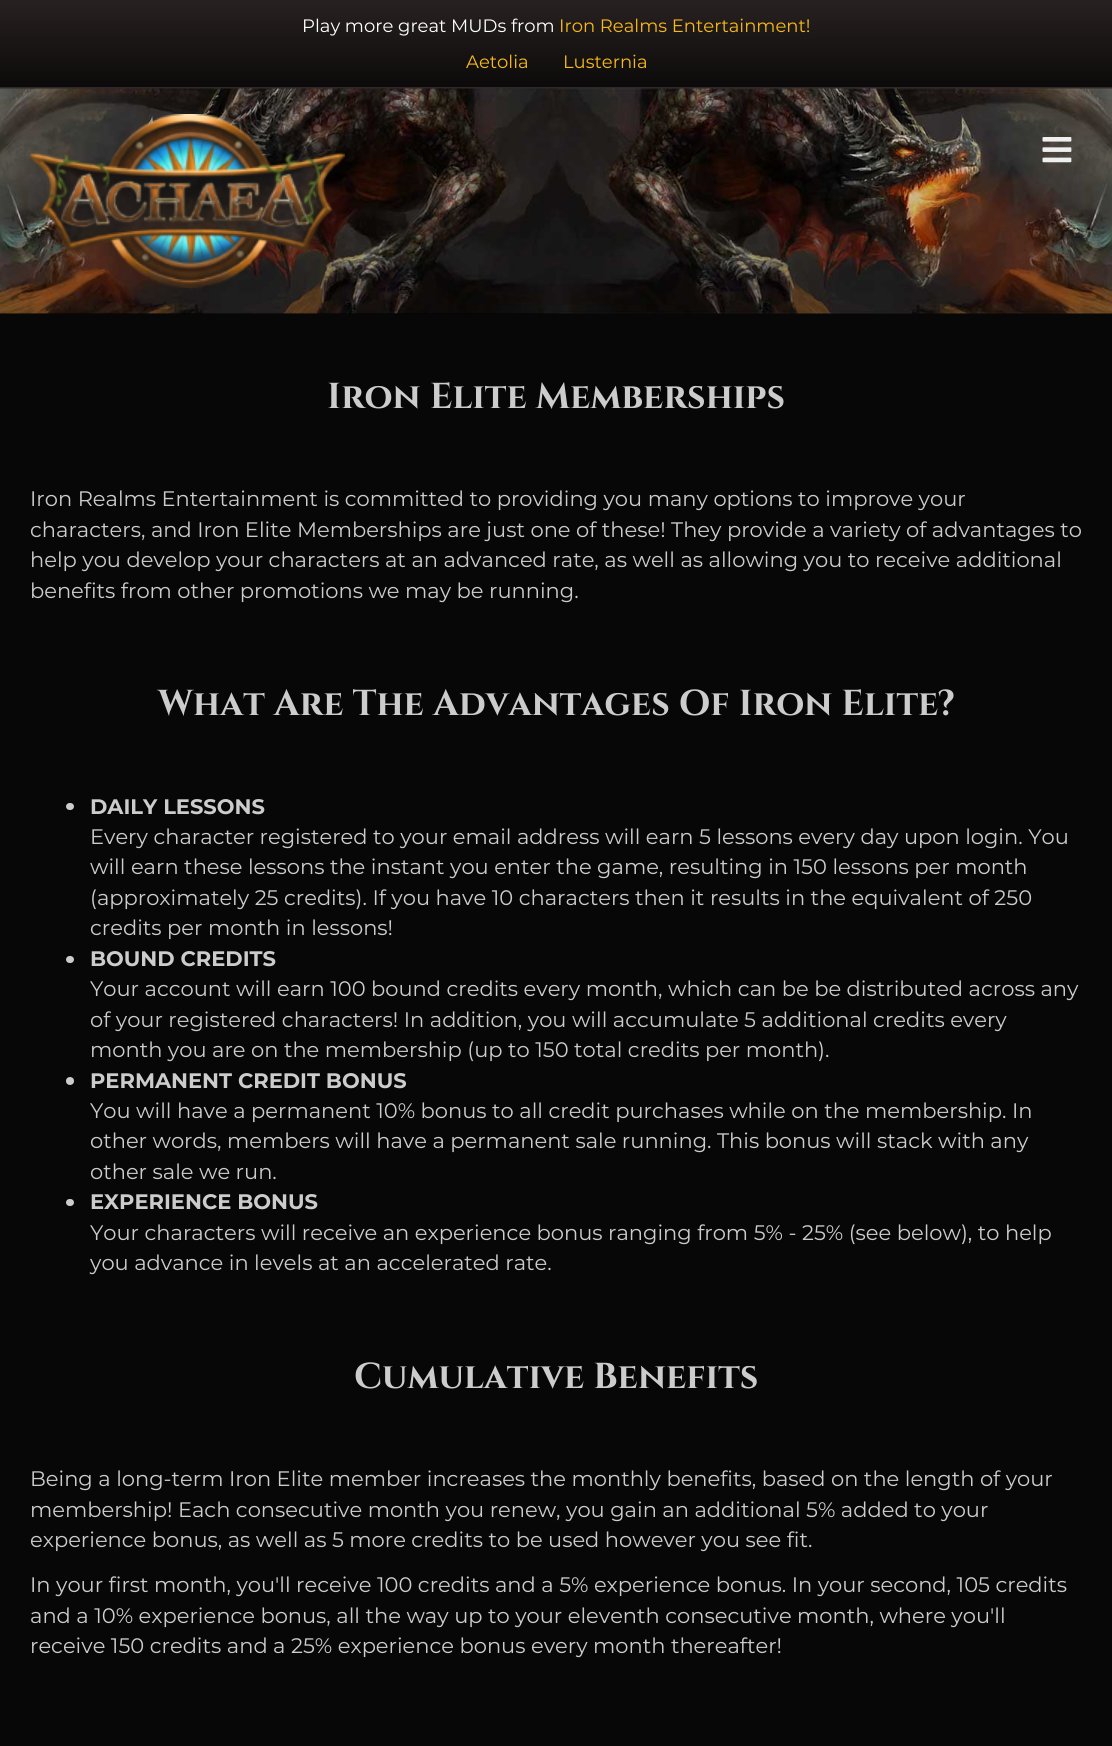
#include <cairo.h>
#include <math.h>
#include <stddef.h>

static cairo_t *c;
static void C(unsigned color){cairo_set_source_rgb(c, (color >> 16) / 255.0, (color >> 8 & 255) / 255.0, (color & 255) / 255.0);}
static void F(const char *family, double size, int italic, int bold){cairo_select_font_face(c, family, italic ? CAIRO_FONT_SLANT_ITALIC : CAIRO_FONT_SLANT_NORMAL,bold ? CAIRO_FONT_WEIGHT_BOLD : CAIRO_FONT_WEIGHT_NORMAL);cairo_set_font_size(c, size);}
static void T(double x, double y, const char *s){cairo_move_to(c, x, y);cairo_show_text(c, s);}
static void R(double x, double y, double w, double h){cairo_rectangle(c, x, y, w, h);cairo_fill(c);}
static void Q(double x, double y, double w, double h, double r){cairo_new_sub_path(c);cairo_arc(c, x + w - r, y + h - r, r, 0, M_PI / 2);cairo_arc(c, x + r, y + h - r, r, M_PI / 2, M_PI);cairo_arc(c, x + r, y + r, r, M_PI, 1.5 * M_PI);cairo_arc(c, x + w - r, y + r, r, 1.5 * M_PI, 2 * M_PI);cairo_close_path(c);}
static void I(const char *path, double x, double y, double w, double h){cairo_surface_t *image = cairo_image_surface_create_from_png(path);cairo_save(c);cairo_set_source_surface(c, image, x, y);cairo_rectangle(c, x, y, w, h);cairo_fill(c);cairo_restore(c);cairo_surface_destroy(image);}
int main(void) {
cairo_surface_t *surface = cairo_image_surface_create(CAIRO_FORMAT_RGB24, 1112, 1746);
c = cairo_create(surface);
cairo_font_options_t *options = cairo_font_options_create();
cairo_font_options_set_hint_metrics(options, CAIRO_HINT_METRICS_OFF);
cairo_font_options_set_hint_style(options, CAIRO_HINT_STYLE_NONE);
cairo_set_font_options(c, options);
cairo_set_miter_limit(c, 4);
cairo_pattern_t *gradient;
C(0x070707);
cairo_paint(c);
gradient = cairo_pattern_create_linear(557,0,557,87);
cairo_pattern_add_color_stop_rgba(gradient,0,0.157,0.129,0.129,1);
cairo_pattern_add_color_stop_rgba(gradient,1,0.047,0.039,0.039,1);
cairo_set_source(c,gradient);
cairo_pattern_destroy(gradient);
R(0,0,1112,87);
C(0x302828);
R(0,87,1112,2);
F("Montserrat",18,0,0);
C(0xffffff);
T(302,32,"Play more great MUDs from");
C(0xf7b91a);
T(559,32,"Iron Realms Entertainment!");
T(466,68,"Aetolia");
T(563,68,"Lusternia");
C(0x000000);
R(0,313,1112,1);
I("1.png",0,88,1112,226);
I("2.png",30,114,315,174);
I("3.png",1042,137,30,26);
F("Cinzel",36,0,1);
C(0xcccccc);
T(327,408,"Iron Elite Memberships");
F("Montserrat",21,0,0);
T(30,506,"Iron Realms Entertainment is committed to providing you many options to improve your");
T(30,537,"characters, and Iron Elite Memberships are just one of these! They provide a variety of advantages to");
T(30,567,"help you develop your characters at an advanced rate, as well as allowing you to receive additional");
T(30,598,"benefits from other promotions we may be running.");
F("Cinzel",36,0,1);
T(158,715,"What Are The Advantages Of Iron Elite?");
Q(66,803,8,7,3.5);
cairo_fill(c);
F("Montserrat",21,0,1);
T(90,814,"DAILY LESSONS");
F("Montserrat",21,0,0);
T(90,844,"Every character registered to your email address will earn 5 lessons every day upon login. You");
T(90,874,"will earn these lessons the instant you enter the game, resulting in 150 lessons per month");
T(90,905,"(approximately 25 credits). If you have 10 characters then it results in the equivalent of 250");
T(90,935,"credits per month in lessons!");
Q(66,956,8,7,3.5);
cairo_fill(c);
F("Montserrat",21,0,1);
T(90,966,"BOUND CREDITS");
F("Montserrat",21,0,0);
T(90,996,"Your account will earn 100 bound credits every month, which can be be distributed across any");
T(90,1027,"of your registered characters! In addition, you will accumulate 5 additional credits every");
T(90,1057,"month you are on the membership (up to 150 total credits per month).");
cairo_new_path(c);
cairo_arc(c,70,1081,4,0,2 * M_PI);
cairo_fill(c);
F("Montserrat",21,0,1);
T(90,1088,"PERMANENT CREDIT BONUS");
F("Montserrat",21,0,0);
T(90,1118,"You will have a permanent 10% bonus to all credit purchases while on the membership. In");
T(90,1148,"other words, members will have a permanent sale running. This bonus will stack with any");
T(90,1179,"other sale we run.");
Q(66,1199,8,7,3.5);
cairo_fill(c);
F("Montserrat",21,0,1);
T(90,1209,"EXPERIENCE BONUS");
F("Montserrat",21,0,0);
T(90,1240,"Your characters will receive an experience bonus ranging from 5% - 25% (see below), to help");
T(90,1270,"you advance in levels at an accelerated rate.");
F("Cinzel",36,0,1);
T(354,1388,"Cumulative Benefits");
F("Montserrat",21,0,0);
T(30,1486,"Being a long-term Iron Elite member increases the monthly benefits, based on the length of your");
T(30,1517,"membership! Each consecutive month you renew, you gain an additional 5% added to your");
T(30,1547,"experience bonus, as well as 5 more credits to be used however you see fit.");
T(30,1592,"In your first month, you'll receive 100 credits and a 5% experience bonus. In your second, 105 credits");
T(30,1623,"and a 10% experience bonus, all the way up to your eleventh consecutive month, where you'll");
T(30,1653,"receive 150 credits and a 25% experience bonus every month thereafter!");
cairo_surface_write_to_png(surface, "o.png");
cairo_font_options_destroy(options);
cairo_destroy(c);
cairo_surface_destroy(surface);
return 0;
}
